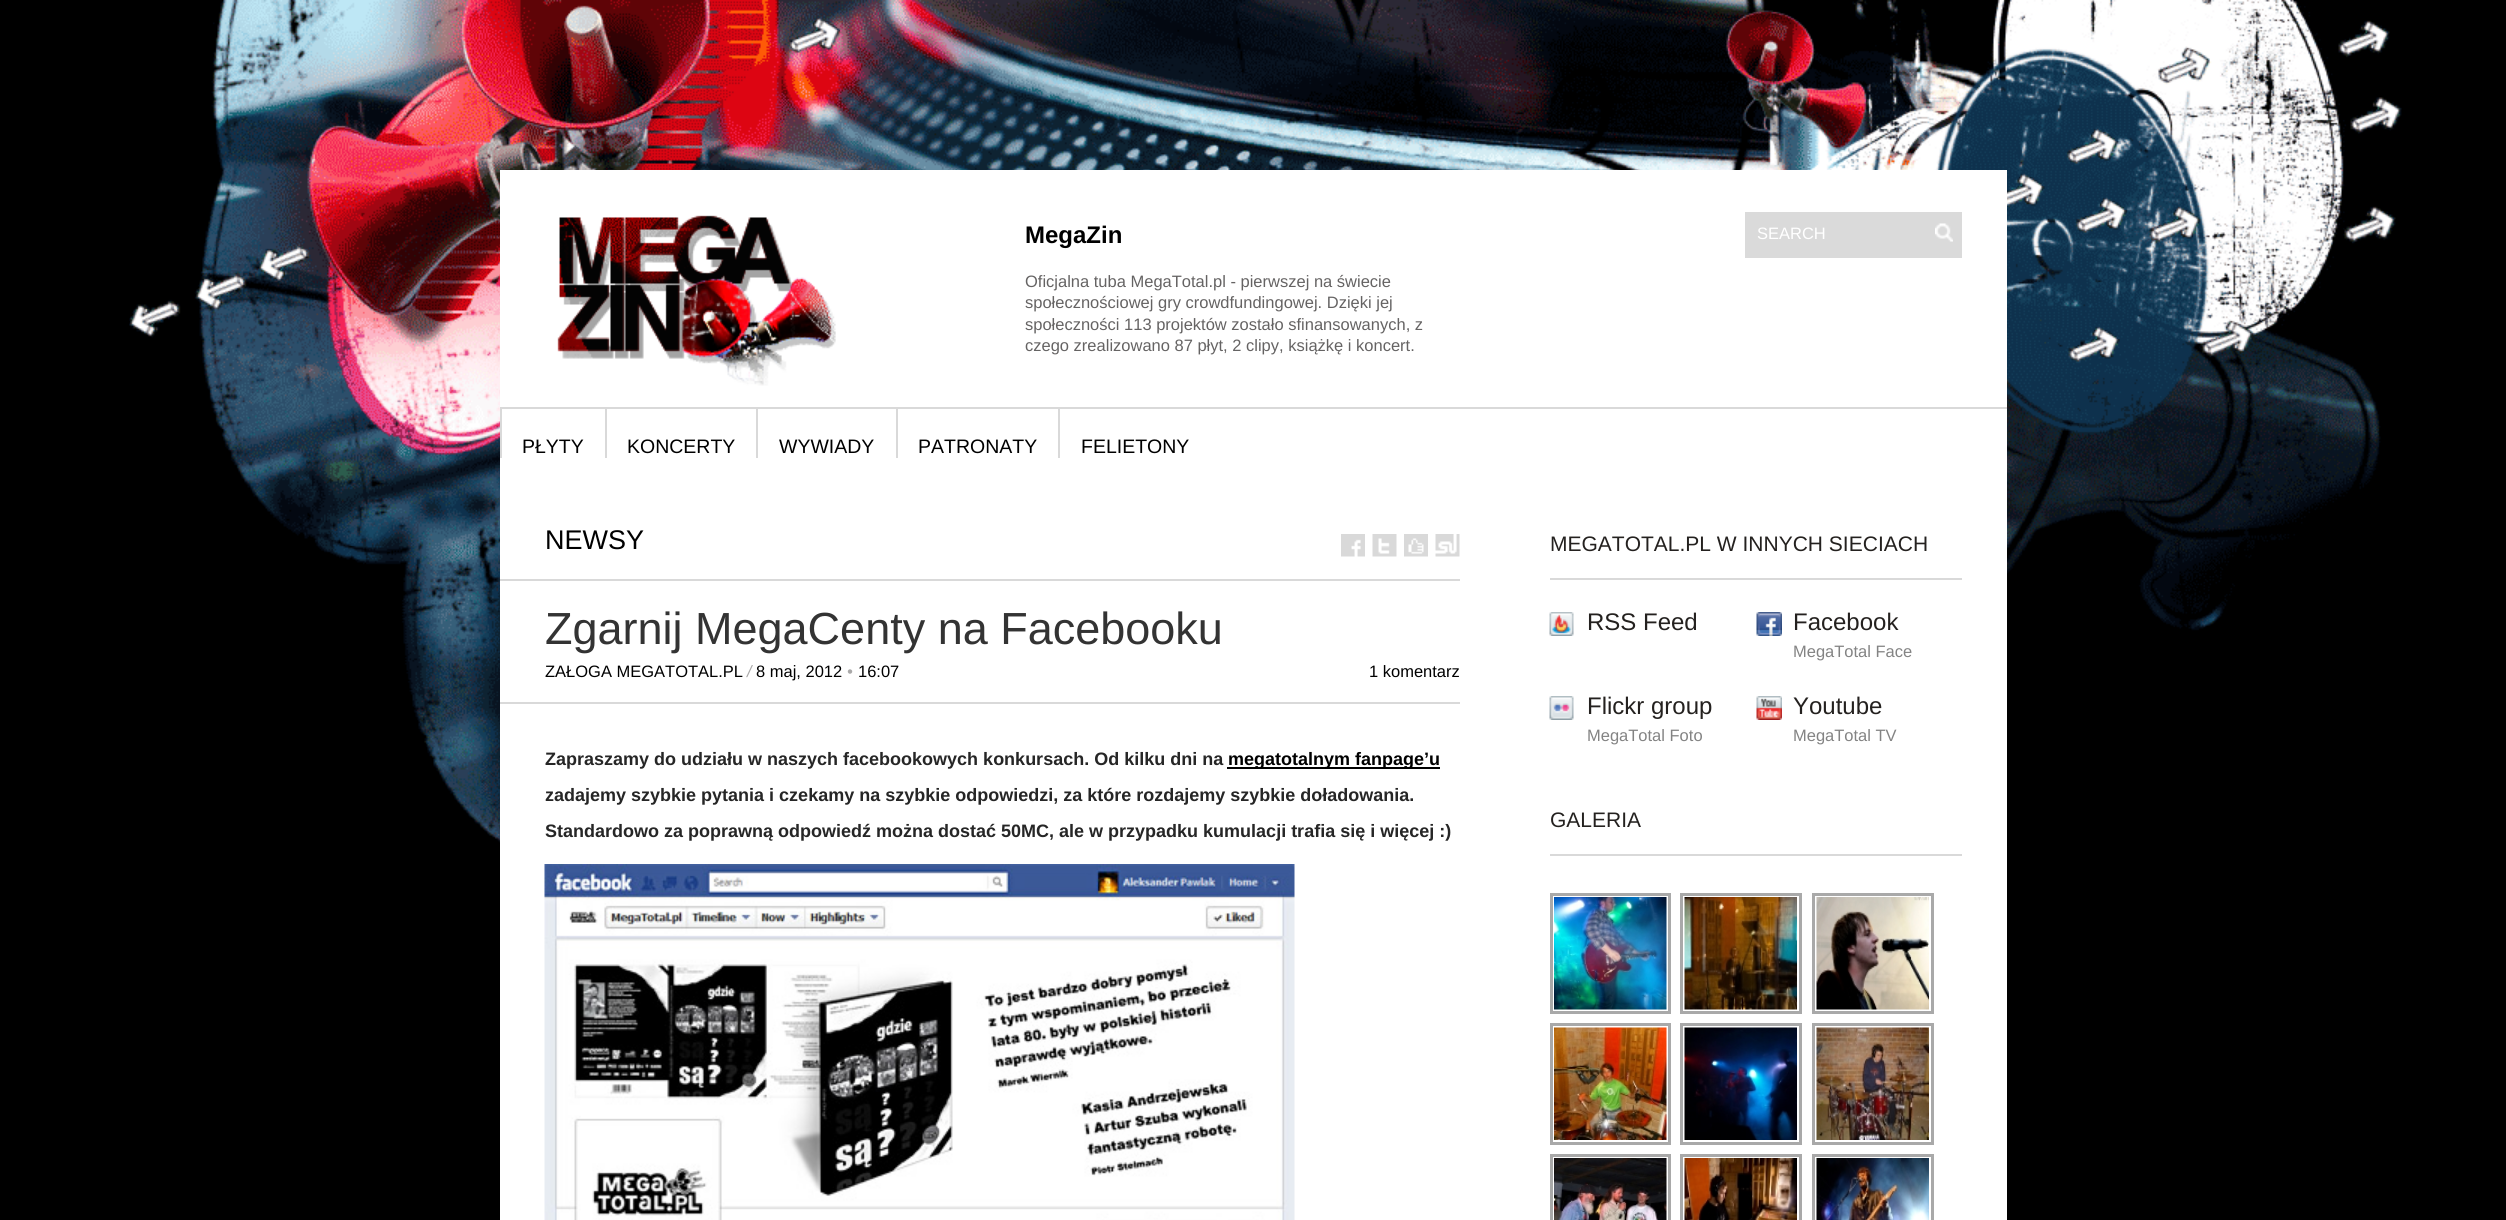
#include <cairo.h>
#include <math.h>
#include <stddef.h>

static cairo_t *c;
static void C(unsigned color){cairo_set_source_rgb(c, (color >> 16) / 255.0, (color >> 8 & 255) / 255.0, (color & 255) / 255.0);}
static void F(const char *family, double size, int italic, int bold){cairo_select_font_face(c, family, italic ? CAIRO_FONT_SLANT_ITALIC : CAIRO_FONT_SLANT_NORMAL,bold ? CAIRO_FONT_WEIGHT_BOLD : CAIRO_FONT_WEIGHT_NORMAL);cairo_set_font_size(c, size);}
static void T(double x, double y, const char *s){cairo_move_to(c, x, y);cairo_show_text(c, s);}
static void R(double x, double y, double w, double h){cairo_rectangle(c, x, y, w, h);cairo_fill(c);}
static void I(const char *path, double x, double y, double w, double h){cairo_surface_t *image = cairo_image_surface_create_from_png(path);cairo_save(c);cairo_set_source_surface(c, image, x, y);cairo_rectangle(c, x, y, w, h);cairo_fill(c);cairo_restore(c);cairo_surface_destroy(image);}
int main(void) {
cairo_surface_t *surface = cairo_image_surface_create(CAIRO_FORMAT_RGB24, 2506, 1220);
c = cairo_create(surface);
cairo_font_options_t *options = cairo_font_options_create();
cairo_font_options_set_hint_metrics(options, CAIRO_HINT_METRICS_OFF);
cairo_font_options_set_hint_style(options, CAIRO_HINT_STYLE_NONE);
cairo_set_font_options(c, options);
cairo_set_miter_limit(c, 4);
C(0x000000);
cairo_paint(c);
I("1.png",129,0,2273,866);
C(0xffffff);
R(500,170,1507,1050);
I("2.png",557,215,279,171);
F("Liberation Sans",24,0,1);
C(0x000000);
T(1025,243,"MegaZin");
F("Liberation Sans",16.5,0,0);
C(0x656363);
T(1025,287,"Oficjalna tuba MegaTotal.pl - pierwszej na świecie");
T(1025,308,"społecznościowej gry crowdfundingowej. Dzięki jej");
T(1025,330,"społeczności 113 projektów zostało sfinansowanych, z");
T(1025,351,"czego zrealizowano 87 płyt, 2 clipy, książkę i koncert.");
C(0xdadada);
R(1745,212,217,46);
C(0xffffff);
T(1757,239,"SEARCH");
I("3.png",1935,223,18,19);
C(0xd9d9d9);
R(500,407,1507,2);
R(500,408,2,50);
F("Liberation Sans",19.5,0,0);
C(0x000000);
T(522,453,"PŁYTY");
C(0xd9d9d9);
R(605,408,2,50);
C(0x000000);
T(627,453,"KONCERTY");
C(0xd9d9d9);
R(756,408,2,50);
C(0x000000);
T(779,453,"WYWIADY");
C(0xd9d9d9);
R(896,408,2,50);
C(0x000000);
T(918,453,"PATRONATY");
C(0xd9d9d9);
R(1058,408,2,50);
C(0x000000);
T(1081,453,"FELIETONY");
C(0xd9d9d9);
R(500,579,960,2);
F("Liberation Sans",27,0,0);
C(0x000000);
T(545,549,"NEWSY");
I("4.png",1341,534,24,23);
I("5.png",1372,534,25,23);
I("6.png",1404,534,24,23);
I("7.png",1435,534,25,23);
C(0xd9d9d9);
R(500,702,960,2);
F("Liberation Sans",45,0,0);
C(0x333333);
T(545,644,"Zgarnij MegaCenty na Facebooku");
F("Liberation Sans",16.5,0,0);
C(0x000000);
T(545,677,"ZAŁOGA MEGATOTAL.PL");
F("Liberation Sans",16.5,1,0);
C(0xaaa9a9);
T(747,677,"/");
F("Liberation Sans",16.5,0,0);
C(0x000000);
T(756,677,"8 maj, 2012");
F("Liberation Sans",16.5,1,0);
C(0xaaa9a9);
T(847,677,"•");
F("Liberation Sans",16.5,0,0);
C(0x000000);
T(858,677,"16:07");
T(1369,677,"1 komentarz");
F("Liberation Sans",18,0,1);
C(0x262626);
T(545,765,"Zapraszamy do udziału w naszych facebookowych konkursach. Od kilku dni na");
C(0x000000);
R(1227,767,213,2);
T(1228,765,"megatotalnym fanpage’u");
C(0x262626);
T(545,801,"zadajemy szybkie pytania i czekamy na szybkie odpowiedzi, za które rozdajemy szybkie doładowania.");
T(545,837,"Standardowo za poprawną odpowiedź można dostać 50MC, ale w przypadku kumulacji trafia się i więcej :)");
I("8.png",544,864,751,356);
C(0xd9d9d9);
R(1550,578,412,2);
F("Liberation Sans",21,0,0);
C(0x24211f);
T(1550,551,"MEGATOTAL.PL W INNYCH SIECIACH");
I("9.png",1549,612,25,24);
F("Liberation Sans",24,0,0);
T(1587,630,"RSS Feed");
I("10.png",1756,612,26,24);
T(1793,630,"Facebook");
F("Liberation Sans",16.5,0,0);
C(0x838383);
T(1793,657,"MegaTotal Face");
I("11.png",1549,696,25,24);
F("Liberation Sans",24,0,0);
C(0x24211f);
T(1587,714,"Flickr group");
F("Liberation Sans",16.5,0,0);
C(0x838383);
T(1587,741,"MegaTotal Foto");
I("12.png",1756,696,26,24);
F("Liberation Sans",24,0,0);
C(0x24211f);
T(1793,714,"Youtube");
F("Liberation Sans",16.5,0,0);
C(0x838383);
T(1793,741,"MegaTotal TV");
C(0xd9d9d9);
R(1550,854,412,2);
F("Liberation Sans",21,0,0);
C(0x24211f);
T(1550,827,"GALERIA");
cairo_rectangle(c,1551.5,894.5,118,118);
C(0xa9a9a9);
cairo_set_line_width(c,3);
cairo_stroke(c);
cairo_rectangle(c,1681.5,894.5,119,118);
cairo_stroke(c);
cairo_rectangle(c,1813.5,894.5,119,118);
cairo_stroke(c);
I("13.png",1554,897,113,113);
I("14.png",1684,897,113,113);
I("15.png",1816,897,113,113);
cairo_rectangle(c,1551.5,1024.5,118,119);
cairo_stroke(c);
cairo_rectangle(c,1681.5,1024.5,119,119);
cairo_stroke(c);
cairo_rectangle(c,1813.5,1024.5,119,119);
cairo_stroke(c);
I("16.png",1554,1027,113,113);
I("17.png",1684,1027,113,113);
I("18.png",1816,1027,113,113);
cairo_rectangle(c,1551.5,1155.5,118,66);
cairo_stroke(c);
cairo_rectangle(c,1681.5,1155.5,119,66);
cairo_stroke(c);
cairo_rectangle(c,1813.5,1155.5,119,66);
cairo_stroke(c);
I("19.png",1554,1158,113,62);
I("20.png",1684,1158,113,62);
I("21.png",1816,1158,113,62);
cairo_surface_write_to_png(surface, "o.png");
cairo_font_options_destroy(options);
cairo_destroy(c);
cairo_surface_destroy(surface);
return 0;
}
